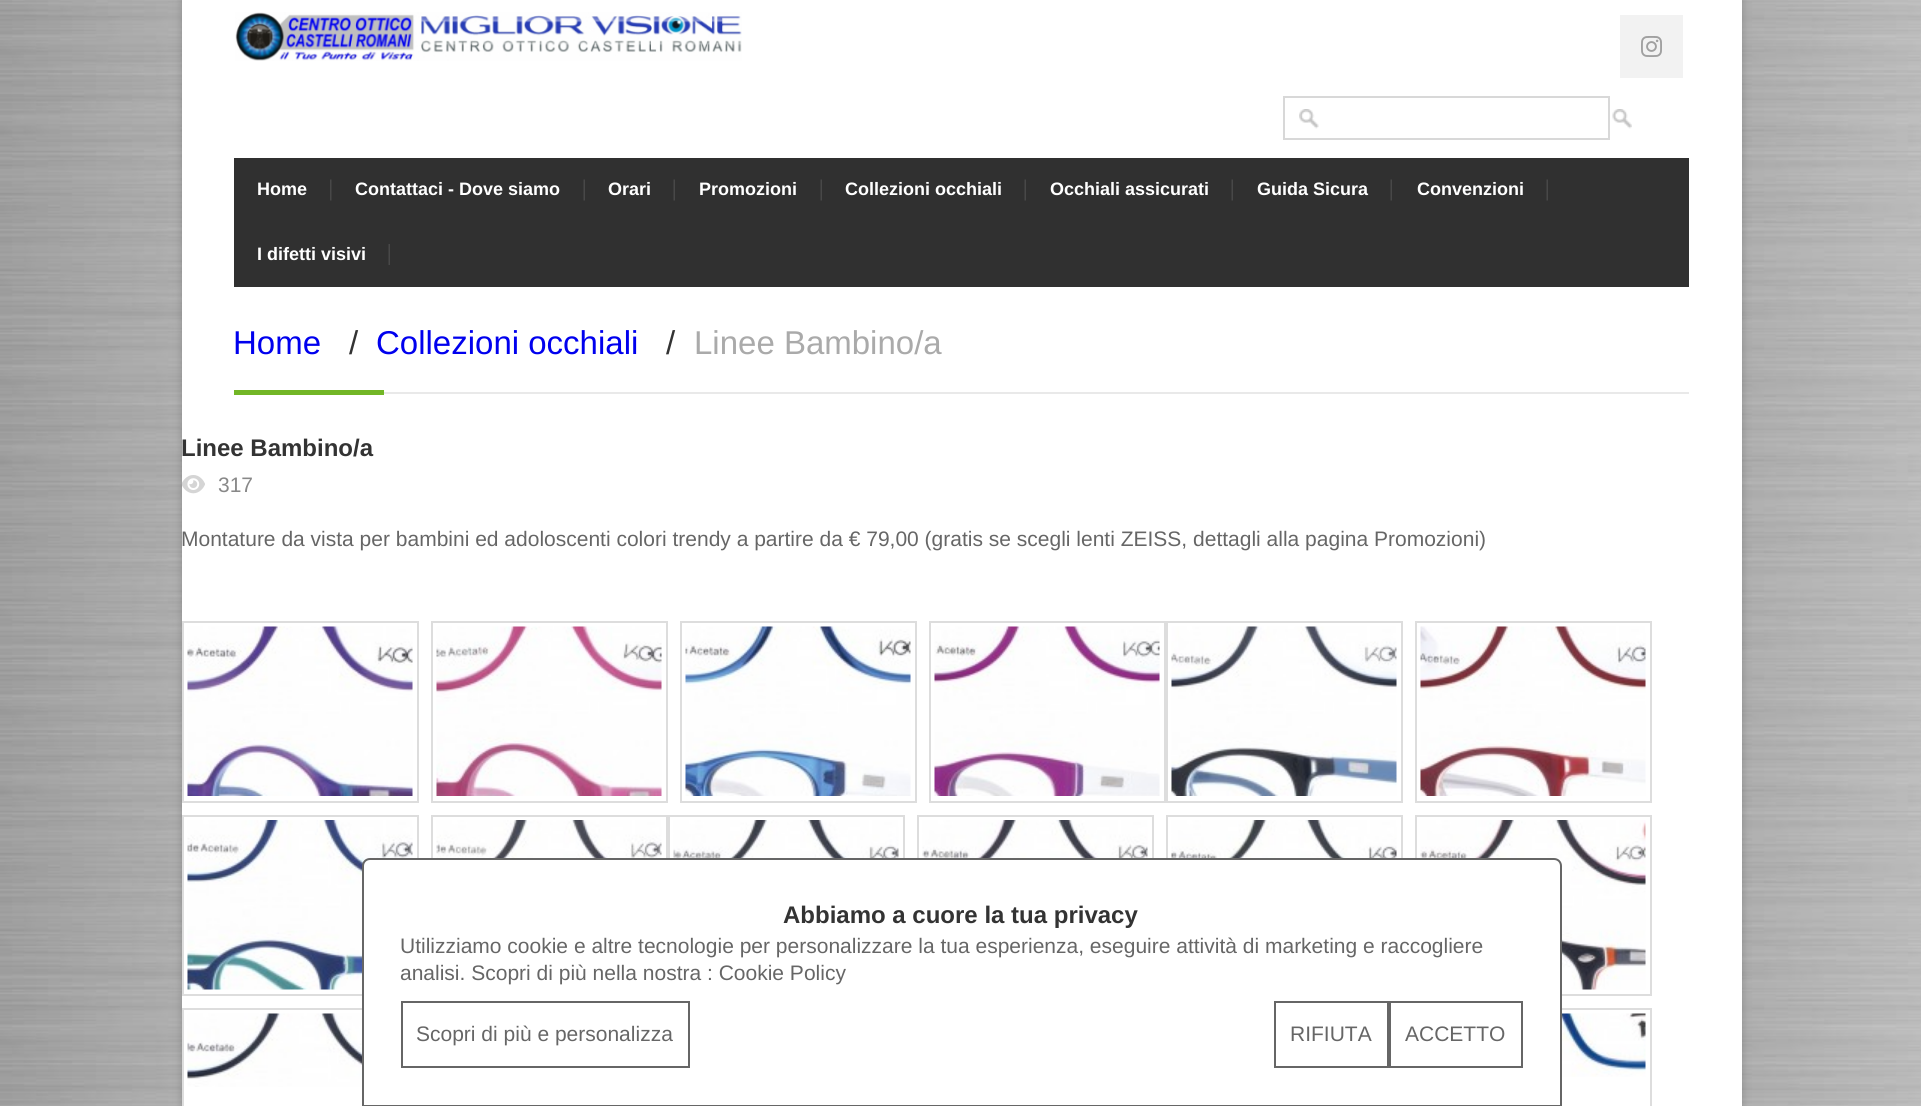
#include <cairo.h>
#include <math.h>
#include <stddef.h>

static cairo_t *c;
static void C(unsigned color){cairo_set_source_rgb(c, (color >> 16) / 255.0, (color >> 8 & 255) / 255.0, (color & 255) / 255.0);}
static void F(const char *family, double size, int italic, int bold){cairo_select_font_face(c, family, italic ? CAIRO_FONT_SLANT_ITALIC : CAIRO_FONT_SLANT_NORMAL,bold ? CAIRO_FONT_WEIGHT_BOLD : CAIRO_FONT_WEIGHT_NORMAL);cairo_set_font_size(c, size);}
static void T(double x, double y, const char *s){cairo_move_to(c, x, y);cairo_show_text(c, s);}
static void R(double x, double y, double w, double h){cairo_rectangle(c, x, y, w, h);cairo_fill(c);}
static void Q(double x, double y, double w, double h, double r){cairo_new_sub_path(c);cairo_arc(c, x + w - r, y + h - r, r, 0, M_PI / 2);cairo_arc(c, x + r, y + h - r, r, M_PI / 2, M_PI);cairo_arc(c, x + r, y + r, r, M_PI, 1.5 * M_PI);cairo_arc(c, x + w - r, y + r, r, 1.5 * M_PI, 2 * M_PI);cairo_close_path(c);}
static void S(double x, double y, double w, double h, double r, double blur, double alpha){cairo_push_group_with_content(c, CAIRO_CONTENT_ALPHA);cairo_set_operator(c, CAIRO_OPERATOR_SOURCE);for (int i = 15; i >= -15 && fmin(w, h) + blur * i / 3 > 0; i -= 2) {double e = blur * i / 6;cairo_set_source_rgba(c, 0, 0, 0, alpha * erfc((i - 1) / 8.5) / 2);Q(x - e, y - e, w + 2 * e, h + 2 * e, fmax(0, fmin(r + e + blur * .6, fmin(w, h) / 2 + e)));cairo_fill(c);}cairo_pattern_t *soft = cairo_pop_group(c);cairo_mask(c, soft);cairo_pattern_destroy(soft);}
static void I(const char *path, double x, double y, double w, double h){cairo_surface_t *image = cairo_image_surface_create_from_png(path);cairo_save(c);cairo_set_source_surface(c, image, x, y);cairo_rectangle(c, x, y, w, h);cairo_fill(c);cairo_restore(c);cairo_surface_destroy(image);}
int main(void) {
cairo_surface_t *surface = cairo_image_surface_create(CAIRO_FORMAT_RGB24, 1921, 1106);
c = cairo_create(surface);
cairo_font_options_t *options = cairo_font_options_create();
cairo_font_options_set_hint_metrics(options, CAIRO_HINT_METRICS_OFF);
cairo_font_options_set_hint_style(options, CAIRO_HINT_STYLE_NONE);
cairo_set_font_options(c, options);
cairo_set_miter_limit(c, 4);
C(0xffffff);
cairo_paint(c);
I("1.png",0,0,1921,1106);
C(0x000000);
S(182,-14,1560,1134,0,4.5,.2);
C(0xffffff);
R(182,0,1560,1106);
I("2.png",235,12,507,49);
C(0xf2f2f2);
R(1620,15,63,63);
I("3.png",1641,36,21,21);
I("4.png",1299,109,20,20);
cairo_rectangle(c,1284,97,325,42);
C(0xd8d8d8);
cairo_stroke(c);
I("5.png",1612,109,20,20);
C(0x303030);
R(234,158,1455,129);
I("6.png",330,179,2,22);
F("Liberation Sans",18,0,1);
C(0xffffff);
T(257,195,"Home");
I("7.png",583,179,2,22);
T(355,195,"Contattaci - Dove siamo");
I("7.png",673,179,2,22);
T(608,195,"Orari");
I("7.png",820,179,2,22);
T(699,195,"Promozioni");
I("7.png",1024,179,2,22);
T(845,195,"Collezioni occhiali");
I("7.png",1231,179,2,22);
T(1050,195,"Occhiali assicurati");
I("7.png",1390,179,2,22);
T(1257,195,"Guida Sicura");
I("7.png",1546,179,2,22);
T(1417,195,"Convenzioni");
I("8.png",388,244,2,21);
T(257,260,"I difetti visivi");
C(0xe9e9e9);
R(384,392,1305,2);
F("Liberation Sans",33,0,0);
C(0x0000ee);
T(233,354,"Home");
C(0x333333);
T(349,354,"/");
C(0x0000ee);
T(376,354,"Collezioni occhiali");
C(0x333333);
T(666,354,"/");
C(0xaaaaaa);
T(694,354,"Linee Bambino/a");
C(0x72b626);
R(234,390,150,5);
F("Liberation Sans",24,0,1);
C(0x333333);
T(181,456,"Linee Bambino/a");
I("9.png",182,475,23,19);
F("Liberation Sans",21,0,0);
C(0x888888);
T(218,492,"317");
C(0x666666);
T(181,546,"Montature da vista per bambini ed adoloscenti colori trendy a partire da € 79,00 (gratis se scegli lenti ZEISS, dettagli alla pagina Promozioni)");
cairo_rectangle(c,183,622,235,180);
C(0xdddddd);
cairo_stroke(c);
I("10.png",187,626,226,170);
cairo_rectangle(c,432,622,235,180);
cairo_stroke(c);
I("11.png",436,626,226,170);
cairo_rectangle(c,681,622,235,180);
cairo_stroke(c);
I("12.png",685,626,226,170);
cairo_rectangle(c,930,622,235,180);
cairo_stroke(c);
I("13.png",934,626,226,170);
cairo_rectangle(c,1167,622,235,180);
cairo_stroke(c);
I("14.png",1171,626,226,170);
cairo_rectangle(c,1416,622,235,180);
cairo_stroke(c);
I("15.png",1420,626,226,170);
cairo_rectangle(c,183,816,235,179);
cairo_stroke(c);
I("16.png",187,820,226,170);
cairo_rectangle(c,432,816,235,179);
cairo_stroke(c);
I("17.png",436,820,226,38);
cairo_rectangle(c,669,816,235,179);
cairo_stroke(c);
I("18.png",673,820,226,38);
cairo_rectangle(c,918,816,235,179);
cairo_stroke(c);
I("19.png",922,820,226,38);
cairo_rectangle(c,1167,816,235,179);
cairo_stroke(c);
I("20.png",1171,820,226,38);
cairo_rectangle(c,1416,816,235,179);
cairo_stroke(c);
I("21.png",1420,820,226,170);
cairo_rectangle(c,183,1009,235,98);
cairo_stroke(c);
I("22.png",187,1013,175,74);
cairo_rectangle(c,1416,1009,235,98);
cairo_stroke(c);
I("23.png",1562,1013,84,64);
C(0xffffff);
cairo_new_path(c);
cairo_move_to(c,370,859);
cairo_line_to(c,1554,859);
cairo_curve_to(c,1558,859,1561,862,1561,866);
cairo_line_to(c,1561,1106);
cairo_line_to(c,363,1106);
cairo_line_to(c,363,866);
cairo_curve_to(c,363,862,366,859,370,859);
cairo_close_path(c);
cairo_fill_preserve(c);
C(0x666666);
cairo_stroke(c);
F("Liberation Sans",24,0,1);
C(0x333333);
T(783,923,"Abbiamo a cuore la tua privacy");
F("Liberation Sans",21,0,0);
C(0x666666);
T(400,953,"Utilizziamo cookie e altre tecnologie per personalizzare la tua esperienza, eseguire attività di marketing e raccogliere");
T(400,980,"analisi. Scopri di più nella nostra : Cookie Policy");
cairo_rectangle(c,402,1002,287,65);
cairo_stroke(c);
T(416,1041,"Scopri di più e personalizza");
cairo_rectangle(c,1275,1002,113,65);
cairo_stroke(c);
T(1290,1041,"RIFIUTA");
cairo_rectangle(c,1390,1002,132,65);
cairo_stroke(c);
T(1405,1041,"ACCETTO");
cairo_surface_write_to_png(surface, "o.png");
cairo_font_options_destroy(options);
cairo_destroy(c);
cairo_surface_destroy(surface);
return 0;
}
